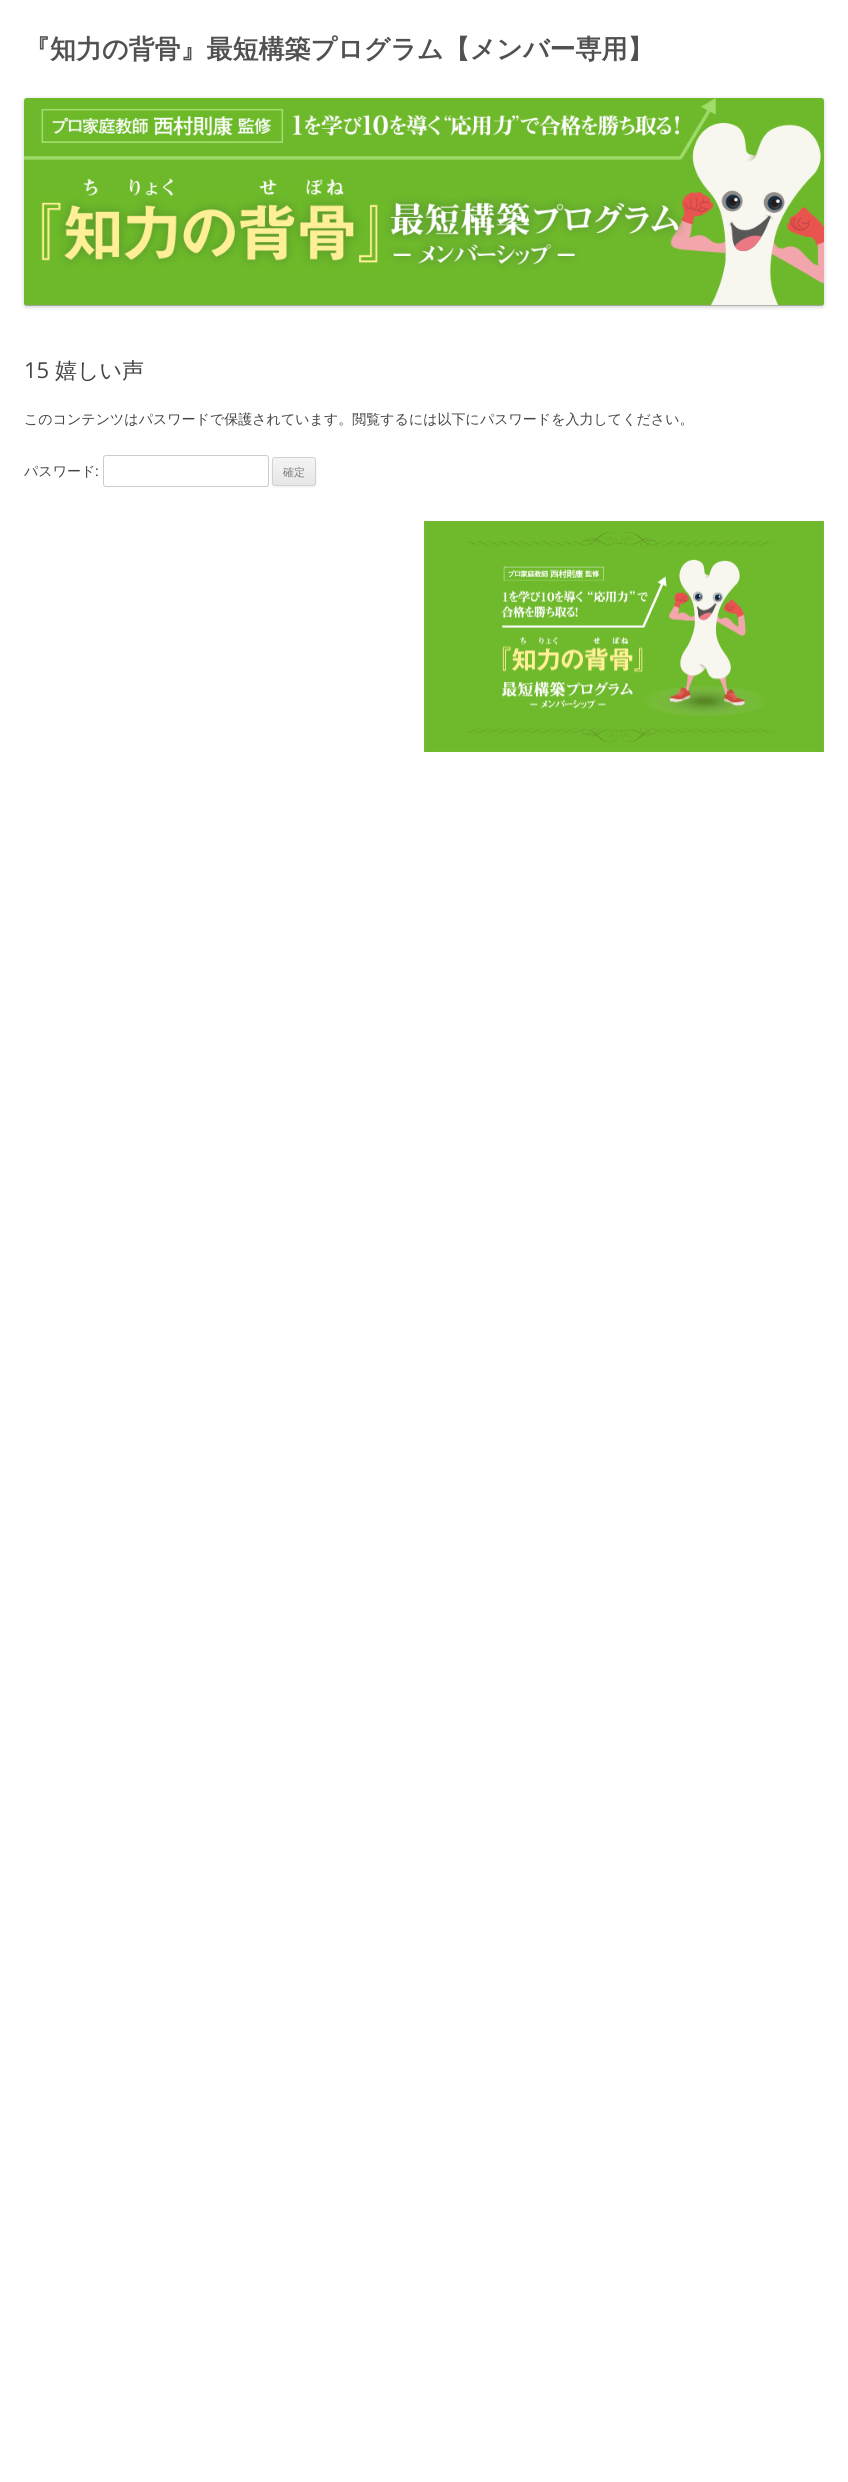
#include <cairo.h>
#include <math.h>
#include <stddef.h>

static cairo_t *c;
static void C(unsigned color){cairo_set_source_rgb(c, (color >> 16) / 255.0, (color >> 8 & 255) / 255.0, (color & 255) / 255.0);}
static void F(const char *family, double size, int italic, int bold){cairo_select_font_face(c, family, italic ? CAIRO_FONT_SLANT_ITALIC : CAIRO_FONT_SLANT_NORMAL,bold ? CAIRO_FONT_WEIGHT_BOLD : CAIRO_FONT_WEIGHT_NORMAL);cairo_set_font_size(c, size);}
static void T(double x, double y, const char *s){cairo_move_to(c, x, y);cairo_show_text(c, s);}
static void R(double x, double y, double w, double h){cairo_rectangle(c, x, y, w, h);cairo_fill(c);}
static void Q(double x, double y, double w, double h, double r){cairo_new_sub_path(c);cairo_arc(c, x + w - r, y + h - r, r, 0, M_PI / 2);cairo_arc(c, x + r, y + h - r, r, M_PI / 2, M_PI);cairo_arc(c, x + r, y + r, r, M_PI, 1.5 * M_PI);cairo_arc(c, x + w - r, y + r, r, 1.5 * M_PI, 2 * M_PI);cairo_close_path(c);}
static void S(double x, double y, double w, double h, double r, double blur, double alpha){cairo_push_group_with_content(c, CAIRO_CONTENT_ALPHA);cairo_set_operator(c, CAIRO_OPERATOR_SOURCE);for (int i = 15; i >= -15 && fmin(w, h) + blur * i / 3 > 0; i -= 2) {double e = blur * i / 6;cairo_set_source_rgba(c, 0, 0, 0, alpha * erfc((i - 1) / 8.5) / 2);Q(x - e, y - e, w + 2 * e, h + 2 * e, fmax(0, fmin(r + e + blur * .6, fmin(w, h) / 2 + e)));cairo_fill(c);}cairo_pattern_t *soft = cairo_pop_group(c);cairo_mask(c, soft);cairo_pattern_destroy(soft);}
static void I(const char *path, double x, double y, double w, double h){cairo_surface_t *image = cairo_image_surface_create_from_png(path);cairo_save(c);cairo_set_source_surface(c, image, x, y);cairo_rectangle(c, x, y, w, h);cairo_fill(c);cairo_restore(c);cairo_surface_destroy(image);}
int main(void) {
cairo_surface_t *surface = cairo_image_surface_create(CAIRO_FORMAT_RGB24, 848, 2482);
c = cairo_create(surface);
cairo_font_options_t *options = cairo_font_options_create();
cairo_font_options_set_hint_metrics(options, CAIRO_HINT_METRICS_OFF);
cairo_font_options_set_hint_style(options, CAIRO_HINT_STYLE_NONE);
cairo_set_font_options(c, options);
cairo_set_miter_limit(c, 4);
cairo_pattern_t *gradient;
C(0xffffff);
cairo_paint(c);
F("WenQuanYi Zen Hei",26,0,1);
C(0x515151);
T(24,58,"『知力の背骨』最短構築プログラム【メンバー専用】");
C(0x000000);
S(24,99,800,208,3,2,.2);
I("1.png",24,98,800,208);
F("Open Sans",22,0,0);
C(0x444444);
T(24,378,"15");
F("WenQuanYi Zen Hei Medium",22,0,0);
T(55,378,"嬉しい声");
F("WenQuanYi Zen Hei Medium",14,0,0);
T(24,424,"このコンテンツはパスワードで保護されています。閲覧するには以下にパスワードを入力してください。");
T(24,476,"パスワード");
F("Open Sans",14,0,0);
T(95,476,":");
Q(103.5,455.5,165,31,2.5);
C(0xcccccc);
cairo_set_line_width(c,1);
cairo_stroke(c);
C(0x404040);
S(272,458,44,29,3,1,.1);
cairo_save(c);
Q(272,457,44,29,3);
cairo_clip(c);
gradient = cairo_pattern_create_linear(294,458,294,485);
cairo_pattern_add_color_stop_rgba(gradient,0,0.957,0.957,0.957,1);
cairo_pattern_add_color_stop_rgba(gradient,1,0.902,0.902,0.902,1);
cairo_set_source(c,gradient);
cairo_pattern_destroy(gradient);
R(272,458,44,27);
cairo_restore(c);
Q(272.5,457.5,43,28,2.5);
C(0xd2d2d2);
cairo_stroke(c);
F("WenQuanYi Zen Hei Medium",11,0,0);
C(0x7c7c7c);
T(283,476,"確定");
I("2.png",424,521,400,231);
cairo_surface_write_to_png(surface, "o.png");
cairo_font_options_destroy(options);
cairo_destroy(c);
cairo_surface_destroy(surface);
return 0;
}
